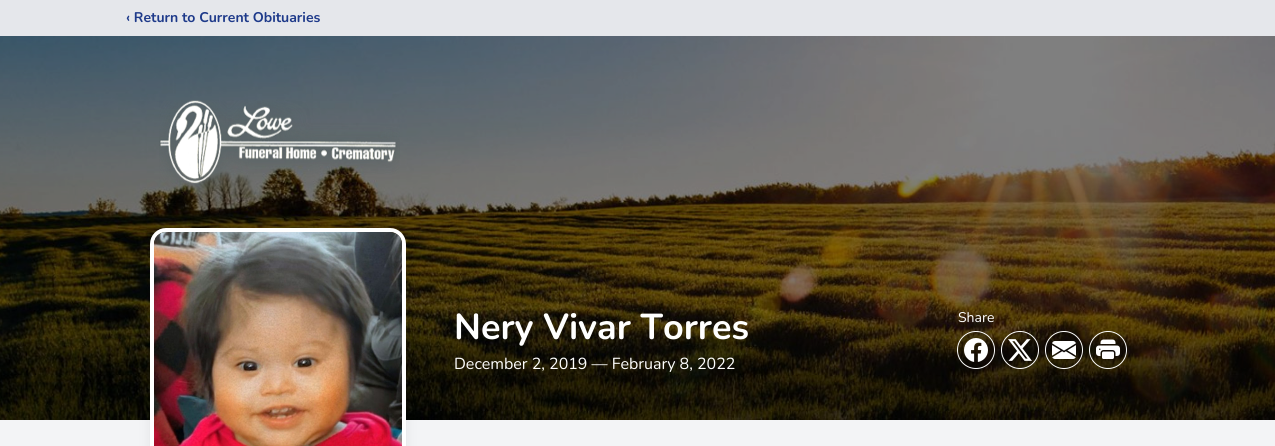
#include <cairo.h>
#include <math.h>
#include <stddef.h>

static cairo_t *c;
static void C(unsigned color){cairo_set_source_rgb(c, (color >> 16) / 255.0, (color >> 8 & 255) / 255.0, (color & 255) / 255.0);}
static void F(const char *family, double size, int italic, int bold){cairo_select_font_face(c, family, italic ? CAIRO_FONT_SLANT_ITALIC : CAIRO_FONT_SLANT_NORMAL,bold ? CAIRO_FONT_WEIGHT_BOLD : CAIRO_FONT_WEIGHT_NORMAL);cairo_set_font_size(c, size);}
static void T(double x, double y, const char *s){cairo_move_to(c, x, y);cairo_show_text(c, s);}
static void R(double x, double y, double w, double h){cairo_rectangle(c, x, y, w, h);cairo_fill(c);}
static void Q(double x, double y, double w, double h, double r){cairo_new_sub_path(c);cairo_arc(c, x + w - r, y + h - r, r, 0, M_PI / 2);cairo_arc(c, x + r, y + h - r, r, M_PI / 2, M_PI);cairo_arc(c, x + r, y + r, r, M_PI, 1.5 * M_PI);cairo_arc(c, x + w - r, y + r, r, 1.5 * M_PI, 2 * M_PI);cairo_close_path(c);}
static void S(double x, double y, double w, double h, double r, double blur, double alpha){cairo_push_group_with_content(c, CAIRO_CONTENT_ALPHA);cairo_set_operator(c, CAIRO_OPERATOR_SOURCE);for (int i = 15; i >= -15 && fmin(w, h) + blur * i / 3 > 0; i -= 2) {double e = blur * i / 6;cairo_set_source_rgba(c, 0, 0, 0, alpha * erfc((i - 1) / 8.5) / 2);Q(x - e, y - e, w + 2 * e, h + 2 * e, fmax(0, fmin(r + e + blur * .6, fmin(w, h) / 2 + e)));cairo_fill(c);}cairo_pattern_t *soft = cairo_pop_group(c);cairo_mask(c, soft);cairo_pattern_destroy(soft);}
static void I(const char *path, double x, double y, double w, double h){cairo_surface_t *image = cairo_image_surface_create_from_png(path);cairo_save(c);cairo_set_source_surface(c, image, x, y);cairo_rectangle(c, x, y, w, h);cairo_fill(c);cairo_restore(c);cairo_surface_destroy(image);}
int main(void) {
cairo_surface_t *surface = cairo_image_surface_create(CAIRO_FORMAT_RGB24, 1275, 446);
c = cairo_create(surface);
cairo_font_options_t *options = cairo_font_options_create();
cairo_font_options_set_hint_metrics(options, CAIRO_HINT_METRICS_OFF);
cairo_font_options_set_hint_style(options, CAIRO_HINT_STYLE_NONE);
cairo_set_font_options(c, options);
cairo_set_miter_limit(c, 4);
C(0xf3f4f6);
cairo_paint(c);
C(0xe5e7eb);
R(0,0,1275,36);
F("Nunito",14,0,1);
C(0x1e3a8a);
T(126,22,"‹ Return to Current Obituaries");
I("1.png",0,36,1275,384);
I("2.png",159,100,241,94);
C(0x000000);
S(153,241,250,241,13,7.5,.1);
Q(152,230,252,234,14);
C(0xffffff);
cairo_set_line_width(c,4);
cairo_stroke(c);
I("3.png",154,232,248,214);
F("Nunito",36,0,1);
T(454,339,"Nery Vivar Torres");
F("Nunito",16,0,0);
T(454,369,"December 2, 2019 — February 8, 2022");
F("Nunito",14,0,0);
T(958,322,"Share");
cairo_new_path(c);
cairo_arc(c,976,350,18.5,0,2 * M_PI);
cairo_set_line_width(c,1);
cairo_stroke(c);
cairo_set_source_rgba(c,0,0,0,0.2);
cairo_arc(c,976,350,18,0,2 * M_PI);
cairo_fill(c);
I("4.png",964,338,24,24);
cairo_arc(c,1020,350,18.5,0,2 * M_PI);
C(0xffffff);
cairo_stroke(c);
cairo_set_source_rgba(c,0,0,0,0.2);
cairo_arc(c,1020,350,18,0,2 * M_PI);
cairo_fill(c);
I("5.png",1008,339,24,22);
cairo_arc(c,1064,350,18.5,0,2 * M_PI);
C(0xffffff);
cairo_stroke(c);
cairo_set_source_rgba(c,0,0,0,0.2);
cairo_arc(c,1064,350,18,0,2 * M_PI);
cairo_fill(c);
I("6.png",1052,341,24,18);
cairo_arc(c,1108,350,18.5,0,2 * M_PI);
C(0xffffff);
cairo_stroke(c);
cairo_set_source_rgba(c,0,0,0,0.2);
cairo_arc(c,1108,350,18,0,2 * M_PI);
cairo_fill(c);
I("7.png",1096,339,24,20);
cairo_surface_write_to_png(surface, "o.png");
cairo_font_options_destroy(options);
cairo_destroy(c);
cairo_surface_destroy(surface);
return 0;
}
